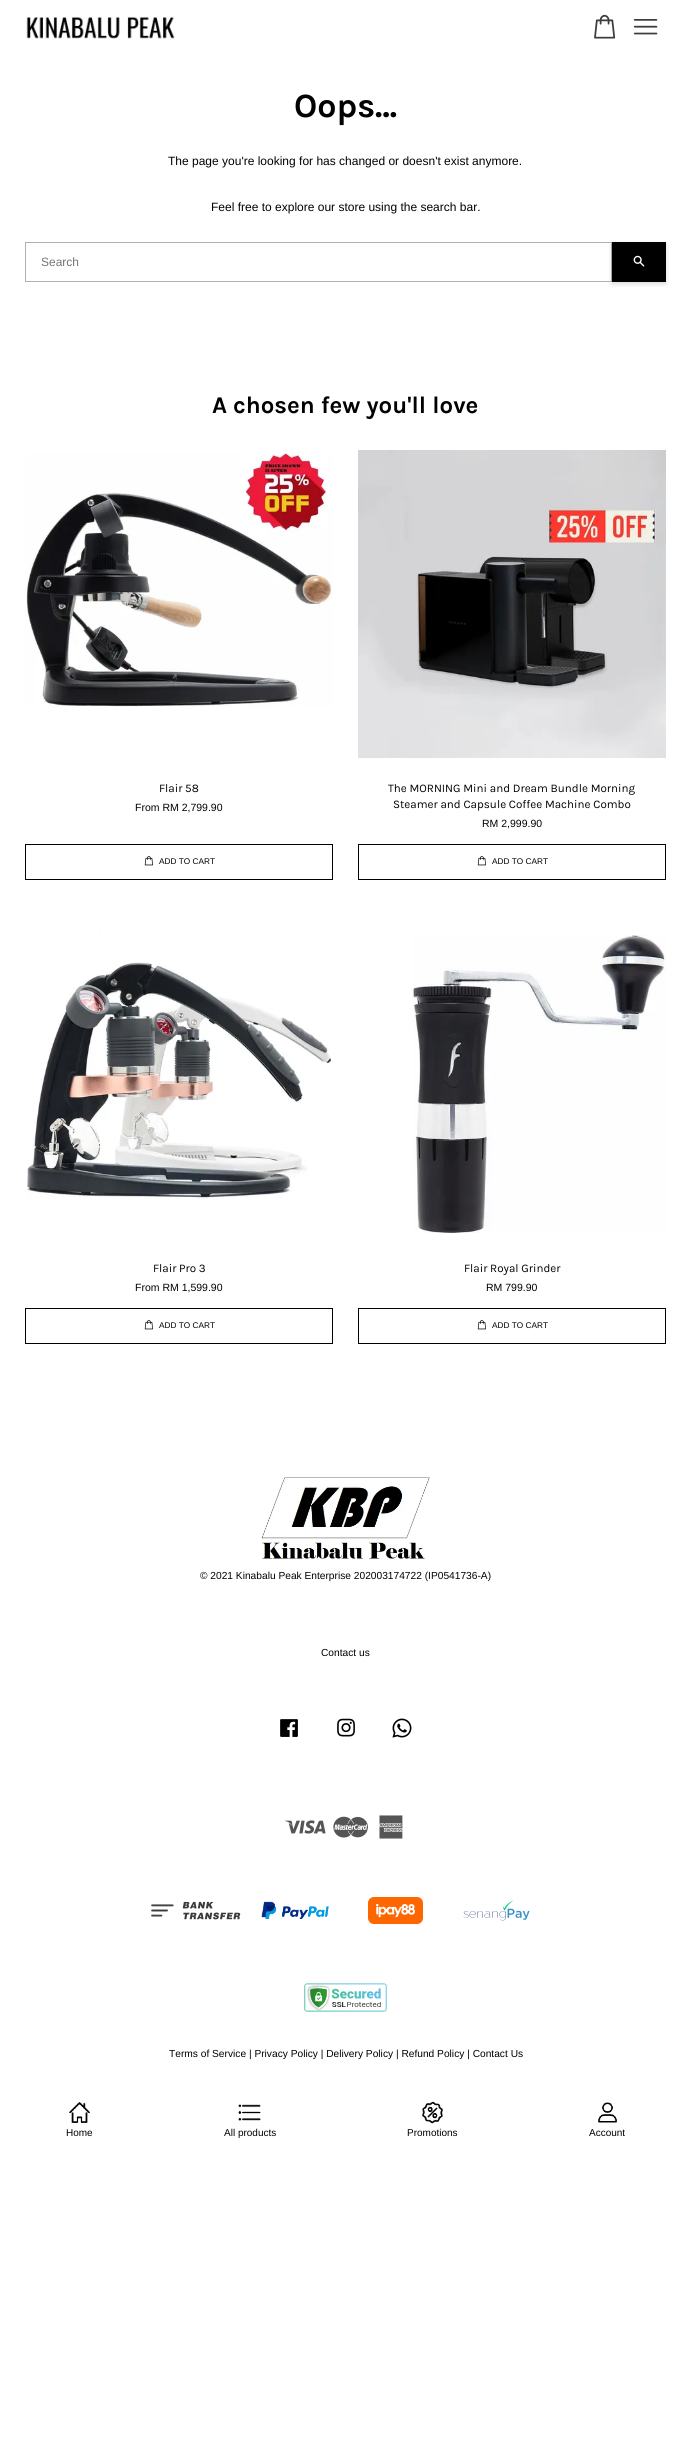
#include <cairo.h>
#include <math.h>
#include <stddef.h>

static cairo_t *c;
static void C(unsigned color){cairo_set_source_rgb(c, (color >> 16) / 255.0, (color >> 8 & 255) / 255.0, (color & 255) / 255.0);}
static void F(const char *family, double size, int italic, int bold){cairo_select_font_face(c, family, italic ? CAIRO_FONT_SLANT_ITALIC : CAIRO_FONT_SLANT_NORMAL,bold ? CAIRO_FONT_WEIGHT_BOLD : CAIRO_FONT_WEIGHT_NORMAL);cairo_set_font_size(c, size);}
static void T(double x, double y, const char *s){cairo_move_to(c, x, y);cairo_show_text(c, s);}
static void R(double x, double y, double w, double h){cairo_rectangle(c, x, y, w, h);cairo_fill(c);}
static void Q(double x, double y, double w, double h, double r){cairo_new_sub_path(c);cairo_arc(c, x + w - r, y + h - r, r, 0, M_PI / 2);cairo_arc(c, x + r, y + h - r, r, M_PI / 2, M_PI);cairo_arc(c, x + r, y + r, r, M_PI, 1.5 * M_PI);cairo_arc(c, x + w - r, y + r, r, 1.5 * M_PI, 2 * M_PI);cairo_close_path(c);}
static void S(double x, double y, double w, double h, double r, double blur, double alpha){cairo_push_group_with_content(c, CAIRO_CONTENT_ALPHA);cairo_set_operator(c, CAIRO_OPERATOR_SOURCE);for (int i = 15; i >= -15 && fmin(w, h) + blur * i / 3 > 0; i -= 2) {double e = blur * i / 6;cairo_set_source_rgba(c, 0, 0, 0, alpha * erfc((i - 1) / 8.5) / 2);Q(x - e, y - e, w + 2 * e, h + 2 * e, fmax(0, fmin(r + e + blur * .6, fmin(w, h) / 2 + e)));cairo_fill(c);}cairo_pattern_t *soft = cairo_pop_group(c);cairo_mask(c, soft);cairo_pattern_destroy(soft);}
static void I(const char *path, double x, double y, double w, double h){cairo_surface_t *image = cairo_image_surface_create_from_png(path);cairo_save(c);cairo_set_source_surface(c, image, x, y);cairo_rectangle(c, x, y, w, h);cairo_fill(c);cairo_restore(c);cairo_surface_destroy(image);}
int main(void) {
cairo_surface_t *surface = cairo_image_surface_create(CAIRO_FORMAT_RGB24, 691, 2452);
c = cairo_create(surface);
cairo_font_options_t *options = cairo_font_options_create();
cairo_font_options_set_hint_metrics(options, CAIRO_HINT_METRICS_OFF);
cairo_font_options_set_hint_style(options, CAIRO_HINT_STYLE_NONE);
cairo_set_font_options(c, options);
cairo_set_miter_limit(c, 4);
C(0xffffff);
cairo_paint(c);
I("1.png",26,16,149,23);
I("2.png",594,14,22,25);
I("3.png",633,19,25,16);
F("Karla",34,0,1);
C(0x010101);
T(294,117,"Oops...");
F("Liberation Sans",12,0,0);
T(168,165,"The page you're looking for has changed or doesn't exist anymore.");
T(211,211,"Feel free to explore our store using the search bar.");
cairo_rectangle(c,25.5,242.5,586,39);
C(0xb1b1b1);
cairo_set_line_width(c,1);
cairo_stroke(c);
C(0x757575);
T(41,266,"Search");
C(0x000000);
S(612,244,54,40,0,2.5,.15);
C(0x000000);
R(612,242,54,40);
I("4.png",633,255,12,12);
F("Karla",24,0,1);
C(0x010101);
T(212,413,"A chosen few you'll love");
I("5.png",25,453,308,254);
F("Karla",11.6,0,0);
T(159,792,"Flair 58");
F("Liberation Sans",10.5,0,0);
T(135,811,"From RM 2,799.90");
cairo_rectangle(c,25.5,844.5,307,35);
cairo_stroke(c);
I("6.png",144,856,9,10);
F("Liberation Sans",8.25,0,0);
T(159,864,"ADD TO CART");
I("7.png",358,450,308,308);
F("Karla",11.6,0,0);
T(388,792,"The MORNING Mini and Dream Bundle Morning");
T(393,808,"Steamer and Capsule Coffee Machine Combo");
F("Liberation Sans",10.5,0,0);
T(482,827,"RM 2,999.90");
cairo_rectangle(c,358.5,844.5,307,35);
cairo_stroke(c);
I("6.png",477,856,9,10);
F("Liberation Sans",8.25,0,0);
T(492,864,"ADD TO CART");
I("8.png",27,933,306,266);
F("Karla",11.6,0,0);
T(153,1272,"Flair Pro 3");
F("Liberation Sans",10.5,0,0);
T(135,1291,"From RM 1,599.90");
cairo_rectangle(c,25.5,1308.5,307,35);
cairo_stroke(c);
I("6.png",144,1320,9,10);
F("Liberation Sans",8.25,0,0);
T(159,1328,"ADD TO CART");
I("9.png",412,935,254,298);
F("Karla",11.6,0,0);
T(464,1272,"Flair Royal Grinder");
F("Liberation Sans",10.5,0,0);
T(486,1291,"RM 799.90");
cairo_rectangle(c,358.5,1308.5,307,35);
cairo_stroke(c);
I("6.png",477,1320,9,10);
F("Liberation Sans",8.25,0,0);
T(492,1328,"ADD TO CART");
I("10.png",261,1476,169,84);
F("Liberation Sans",10.2,0,0);
T(200,1579,"© 2021 Kinabalu Peak Enterprise 202003174722 (IP0541736-A)");
T(321,1656,"Contact us");
I("11.png",280,1719,18,18);
I("12.png",337,1718,18,19);
I("13.png",392,1718,20,20);
I("14.png",285,1820,41,14);
I("15.png",333,1816,35,22);
I("16.png",379,1815,24,24);
I("17.png",151,1901,90,19);
I("18.png",261,1901,68,18);
I("19.png",368,1897,55,27);
I("20.png",463,1900,67,21);
I("21.png",304,1983,83,29);
T(169,2057,"Terms of Service | Privacy Policy | Delivery Policy | Refund Policy | Contact Us");
I("22.png",69,2102,21,21);
F("Liberation Sans",10,0,0);
T(66,2136,"Home");
I("23.png",238,2104,23,17);
T(224,2136,"All products");
I("24.png",422,2101,21,23);
T(407,2136,"Promotions");
I("25.png",598,2102,19,21);
T(589,2136,"Account");
cairo_surface_write_to_png(surface, "o.png");
cairo_font_options_destroy(options);
cairo_destroy(c);
cairo_surface_destroy(surface);
return 0;
}
